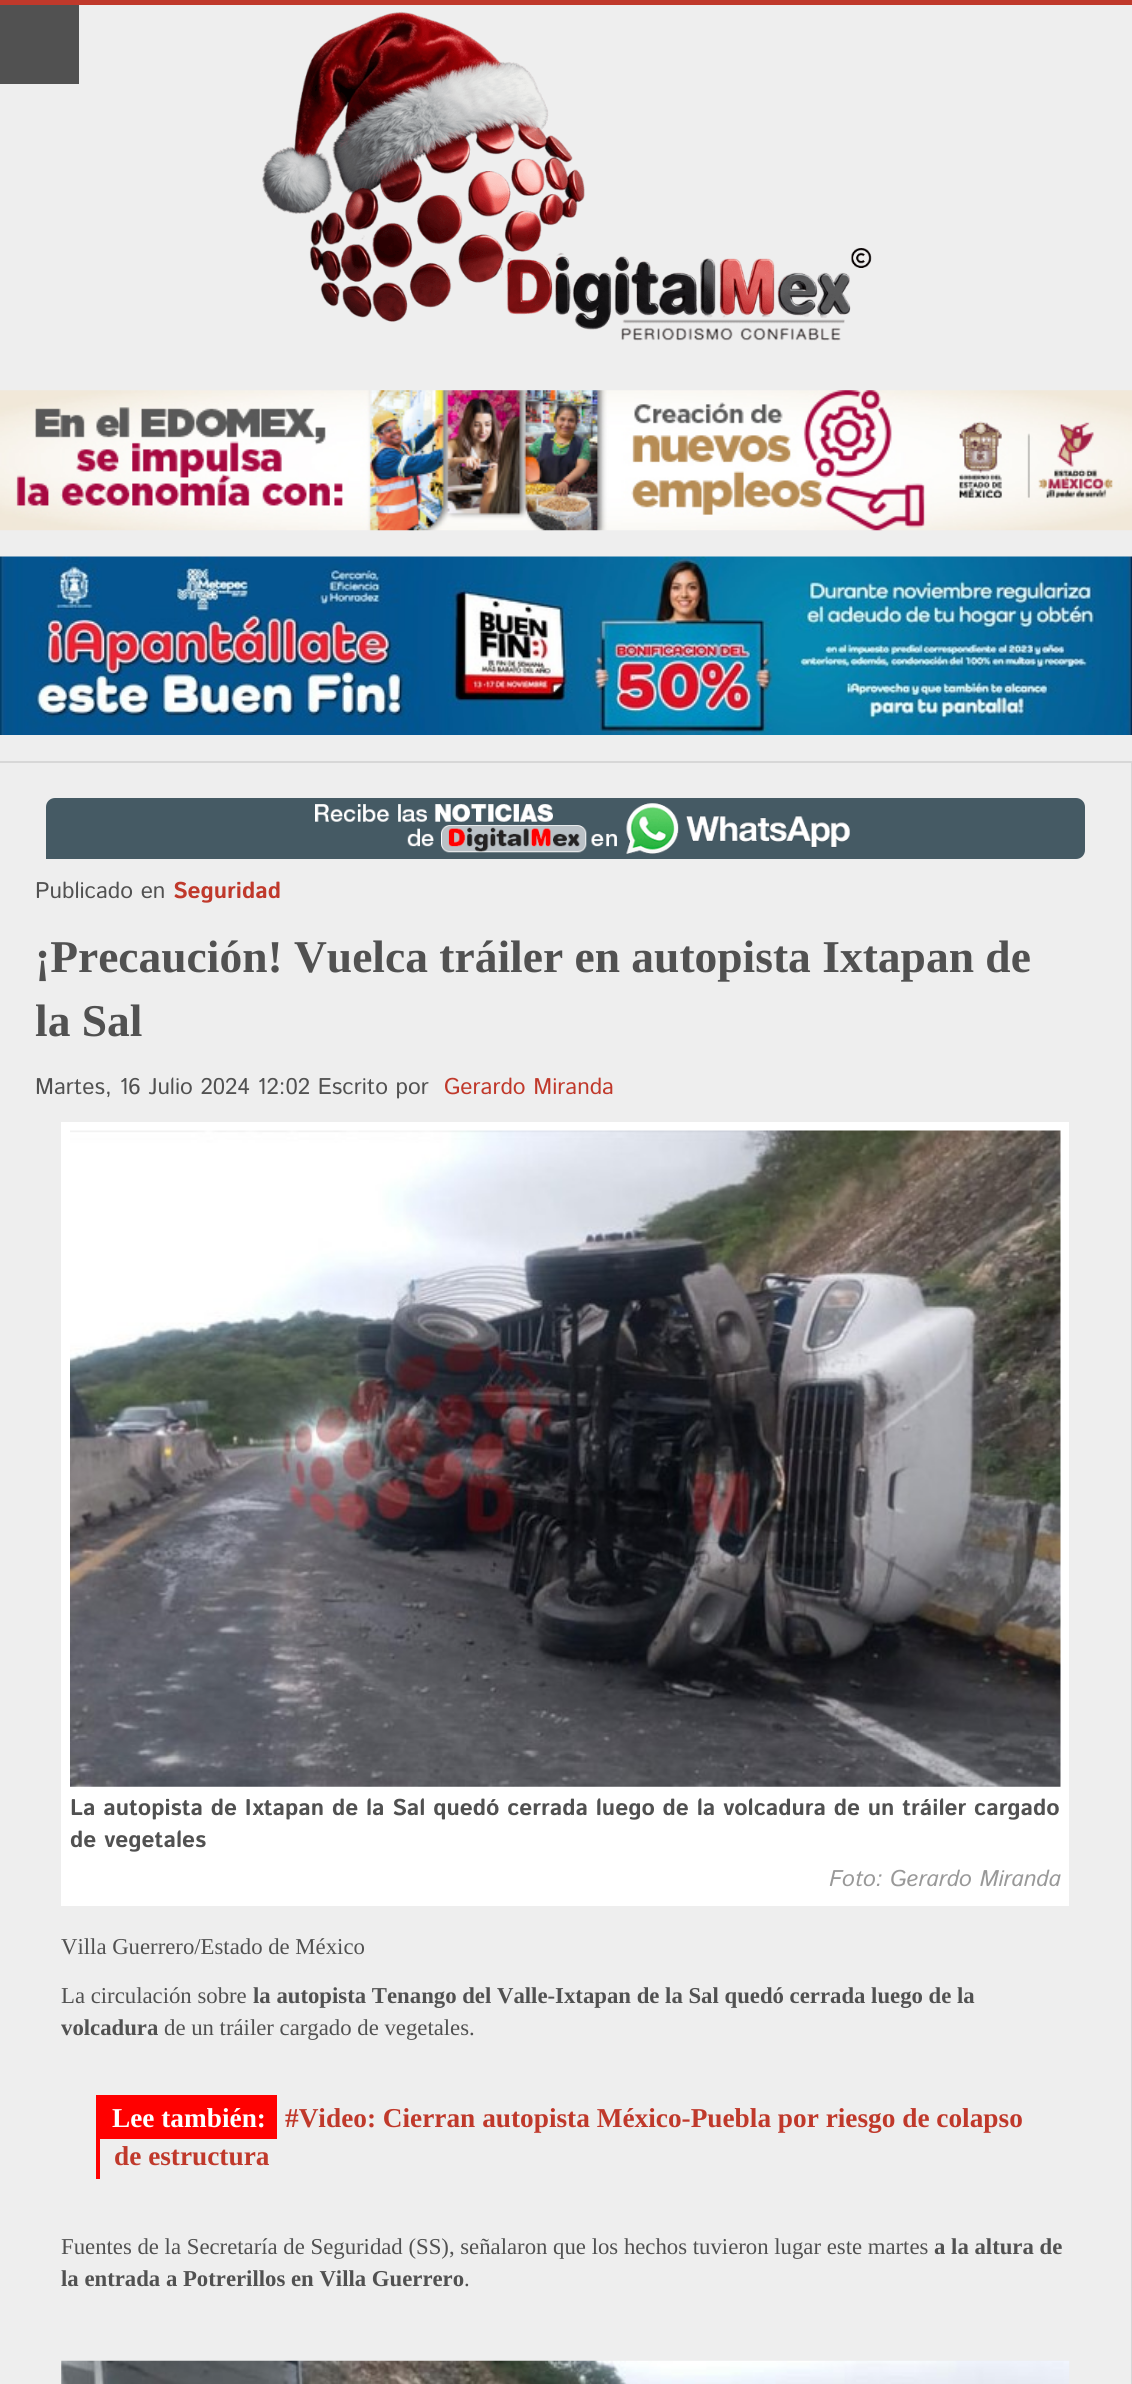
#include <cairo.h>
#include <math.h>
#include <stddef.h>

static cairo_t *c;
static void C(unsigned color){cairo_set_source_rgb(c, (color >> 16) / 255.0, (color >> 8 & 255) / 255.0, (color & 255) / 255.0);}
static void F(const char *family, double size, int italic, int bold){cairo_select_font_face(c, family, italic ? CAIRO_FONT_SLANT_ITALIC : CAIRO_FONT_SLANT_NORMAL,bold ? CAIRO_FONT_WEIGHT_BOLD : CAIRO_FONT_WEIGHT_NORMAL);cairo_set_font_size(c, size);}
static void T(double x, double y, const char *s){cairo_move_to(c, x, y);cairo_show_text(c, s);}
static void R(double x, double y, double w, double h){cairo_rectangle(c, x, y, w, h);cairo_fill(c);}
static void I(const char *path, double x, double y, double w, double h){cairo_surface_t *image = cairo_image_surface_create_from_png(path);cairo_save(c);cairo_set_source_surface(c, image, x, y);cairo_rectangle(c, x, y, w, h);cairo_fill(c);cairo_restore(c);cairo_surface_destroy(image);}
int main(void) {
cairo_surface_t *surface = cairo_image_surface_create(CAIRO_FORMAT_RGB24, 1132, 2384);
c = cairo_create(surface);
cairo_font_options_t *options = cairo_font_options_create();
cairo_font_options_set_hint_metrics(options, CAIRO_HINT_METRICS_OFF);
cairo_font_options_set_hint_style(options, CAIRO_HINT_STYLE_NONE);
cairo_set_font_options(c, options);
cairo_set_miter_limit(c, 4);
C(0xeeeeee);
cairo_paint(c);
C(0xc0392b);
R(0,0,1132,5);
C(0x515151);
R(0,5,79,79);
I("1.png",262,11,610,330);
C(0xd7d7d7);
R(0,761,1132,2);
I("2.png",0,390,1132,141);
I("3.png",0,556,1132,179);
R(1131,763,1,1621);
C(0x455a64);
cairo_new_path(c);
cairo_move_to(c,55,798);
cairo_line_to(c,1076,798);
cairo_curve_to(c,1081,798,1085,802,1085,807);
cairo_line_to(c,1085,850);
cairo_curve_to(c,1085,855,1081,859,1076,859);
cairo_line_to(c,46,859);
cairo_line_to(c,46,807);
cairo_curve_to(c,46,802,50,798,55,798);
cairo_close_path(c);
cairo_fill(c);
I("4.png",315,803,535,51);
F("Istok Web",22.75,0,0);
C(0x515151);
T(35,898,"Publicado en");
F("Istok Web",22.75,0,1);
C(0xc0392b);
T(173,898,"Seguridad");
F("Liberation Serif",45.5,0,1);
C(0x515151);
T(35,972,"¡Precaución! Vuelca tráiler en autopista Ixtapan de");
T(35,1036,"la Sal");
F("Istok Web",22.75,0,0);
T(35,1094,"Martes, 16 Julio 2024 12:02 Escrito por");
C(0xc0392b);
T(444,1094,"Gerardo Miranda");
C(0xffffff);
R(61,1122,1008,784);
I("5.png",70,1130,991,657);
F("Istok Web",22.75,0,1);
C(0x515151);
T(70,1815,"La autopista de Ixtapan de la Sal quedó cerrada luego de la volcadura de un tráiler cargado");
T(70,1847,"de vegetales");
F("Istok Web",22.75,1,0);
C(0x999999);
T(829,1886,"Foto: Gerardo Miranda");
F("Liberation Serif",22.75,0,0);
C(0x515151);
T(61,1954,"Villa Guerrero/Estado de México");
T(61,2003,"La circulación sobre");
F("Liberation Serif",22.75,0,1);
T(253,2003,"la autopista Tenango del Valle-Ixtapan de la Sal quedó cerrada luego de la");
T(61,2035,"volcadura");
F("Liberation Serif",22.75,0,0);
T(164,2035,"de un tráiler cargado de vegetales.");
C(0xff0000);
R(96,2139,4,40);
R(96,2095,181,44);
F("Liberation Serif",27.3,0,1);
C(0xffffff);
T(112,2127,"Lee también:");
C(0xc0392b);
T(285,2127,"#Video: Cierran autopista México-Puebla por riesgo de colapso");
T(114,2165,"de estructura");
F("Liberation Serif",22.75,0,0);
C(0x515151);
T(61,2254,"Fuentes de la Secretaría de Seguridad (SS), señalaron que los hechos tuvieron lugar este martes");
F("Liberation Serif",22.75,0,1);
T(934,2254,"a la altura de");
T(61,2286,"la entrada a Potrerillos en Villa Guerrero");
F("Liberation Serif",22.75,0,0);
T(464,2286,".");
I("6.png",61,2360,1009,24);
cairo_surface_write_to_png(surface, "o.png");
cairo_font_options_destroy(options);
cairo_destroy(c);
cairo_surface_destroy(surface);
return 0;
}
